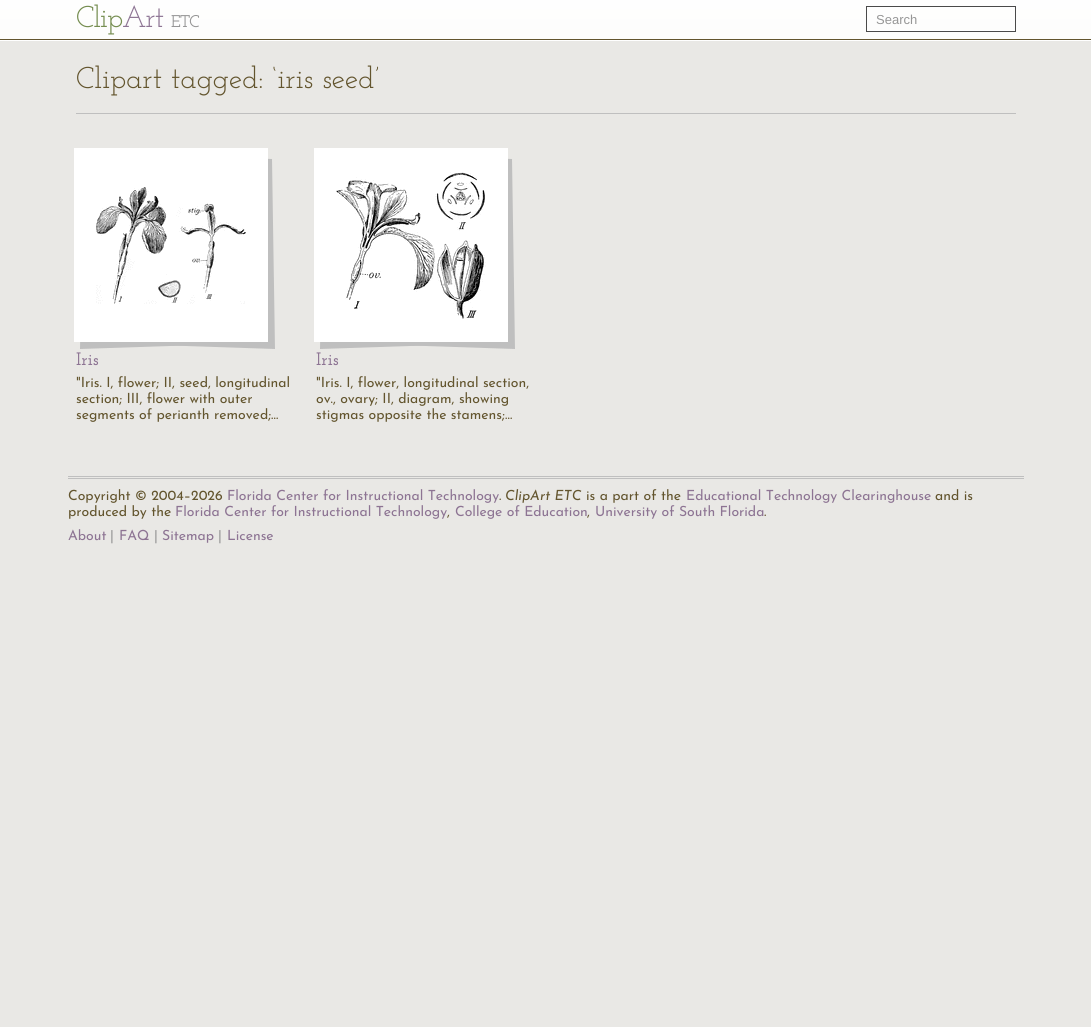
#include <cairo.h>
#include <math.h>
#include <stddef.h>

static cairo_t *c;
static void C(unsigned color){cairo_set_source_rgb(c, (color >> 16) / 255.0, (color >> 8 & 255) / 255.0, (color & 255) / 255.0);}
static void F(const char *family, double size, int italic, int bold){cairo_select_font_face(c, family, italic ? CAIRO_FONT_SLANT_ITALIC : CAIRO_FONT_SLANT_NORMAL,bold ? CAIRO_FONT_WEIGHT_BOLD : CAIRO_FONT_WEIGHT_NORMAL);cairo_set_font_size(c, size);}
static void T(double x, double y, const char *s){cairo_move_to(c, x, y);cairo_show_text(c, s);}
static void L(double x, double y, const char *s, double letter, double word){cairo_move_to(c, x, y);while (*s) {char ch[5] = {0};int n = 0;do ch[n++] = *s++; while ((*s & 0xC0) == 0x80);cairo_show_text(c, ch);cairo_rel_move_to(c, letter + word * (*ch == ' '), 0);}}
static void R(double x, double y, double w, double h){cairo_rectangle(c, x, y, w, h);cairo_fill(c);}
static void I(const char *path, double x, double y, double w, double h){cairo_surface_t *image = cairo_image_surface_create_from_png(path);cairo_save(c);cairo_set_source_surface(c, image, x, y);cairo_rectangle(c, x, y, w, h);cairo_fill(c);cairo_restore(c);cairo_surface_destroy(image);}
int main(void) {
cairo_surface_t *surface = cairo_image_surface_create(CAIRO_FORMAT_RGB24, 1091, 1027);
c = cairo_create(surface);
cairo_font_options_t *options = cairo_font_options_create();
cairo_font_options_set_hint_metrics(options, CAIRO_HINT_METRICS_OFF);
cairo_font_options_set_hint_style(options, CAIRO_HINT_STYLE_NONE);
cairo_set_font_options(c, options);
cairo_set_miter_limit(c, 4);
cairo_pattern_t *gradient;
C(0xe9e8e5);
cairo_paint(c);
C(0xffffff);
R(0,40,1091,1);
gradient = cairo_pattern_create_linear(546,0,546,40);
cairo_pattern_add_color_stop_rgba(gradient,0,0.996,0.996,0.996,1);
cairo_pattern_add_color_stop_rgba(gradient,1,0.992,0.992,0.988,1);
cairo_set_source(c,gradient);
cairo_pattern_destroy(gradient);
R(0,0,1091,39);
C(0x63552e);
R(0,39,1091,1);
F("Josefin Slab",30,0,0);
C(0x758d50);
L(76,27,"Cl",-1,0);
L(100,27,"ip",-1,0);
C(0x8d7493);
L(122,27,"Art",-1,0);
F("Josefin Slab SemiBold",17,0,0);
C(0x969696);
L(171,27,"ETC",-1,0);
C(0xffffff);
R(867,30,148,1);
cairo_rectangle(c,866.5,6.5,149,25);
C(0x4a4a4a);
cairo_set_line_width(c,1);
cairo_stroke(c);
F("Liberation Sans",13,0,0);
C(0x969696);
T(876,24,"Search");
C(0xbfbfbf);
R(76,113,940,1);
F("Josefin Slab",30,0,0);
C(0x63552e);
T(76,88,"Clipart tagged: ‘iris seed’");
C(0xbfbfbf);
cairo_new_path(c);
cairo_move_to(c,92,153);
cairo_line_to(c,272,159);
cairo_line_to(c,275,349);
cairo_line_to(c,95,343);
cairo_close_path(c);
cairo_fill(c);
cairo_new_path(c);
cairo_move_to(c,83,159);
cairo_line_to(c,263,153);
cairo_line_to(c,260,343);
cairo_line_to(c,80,349);
cairo_close_path(c);
cairo_fill(c);
cairo_rectangle(c,75,149,192,192);
C(0xffffff);
cairo_set_line_width(c,2);
cairo_stroke(c);
R(76,150,190,190);
I("1.png",96,187,150,117);
F("Josefin Slab SemiBold",18,0,0);
C(0x8d7493);
T(76,365,"Iris");
F("Josefin Sans",14,0,0);
C(0x63552e);
T(76,387,"\"Iris. I, flower; II, seed, longitudinal");
T(76,403,"section; III, flower with outer");
T(76,419,"segments of perianth removed;…");
C(0xbfbfbf);
cairo_new_path(c);
cairo_move_to(c,332,153);
cairo_line_to(c,512,159);
cairo_line_to(c,515,349);
cairo_line_to(c,335,343);
cairo_close_path(c);
cairo_fill(c);
cairo_new_path(c);
cairo_move_to(c,323,159);
cairo_line_to(c,503,153);
cairo_line_to(c,500,343);
cairo_line_to(c,320,349);
cairo_close_path(c);
cairo_fill(c);
cairo_rectangle(c,315,149,192,192);
C(0xffffff);
cairo_stroke(c);
R(316,150,190,190);
I("2.png",336,172,150,147);
F("Josefin Slab SemiBold",18,0,0);
C(0x8d7493);
T(316,365,"Iris");
F("Josefin Sans",14,0,0);
C(0x63552e);
T(316,387,"\"Iris. I, flower, longitudinal section,");
T(316,403,"ov., ovary; II, diagram, showing");
T(316,419,"stigmas opposite the stamens;…");
C(0xbfbfbf);
R(68,476,956,1);
R(68,478,956,1);
C(0x63552e);
T(68,500,"Copyright © 2004–2026");
C(0x8d7493);
T(227,500,"Florida Center for Instructional Technology");
C(0x63552e);
T(499,500,".");
F("Josefin Sans Thin",14,1,0);
T(505,500,"ClipArt ETC");
F("Josefin Sans",14,0,0);
T(586,500,"is a part of the");
C(0x8d7493);
T(686,500,"Educational Technology Clearinghouse");
C(0x63552e);
T(935,500,"and is");
T(68,516,"produced by the");
C(0x8d7493);
T(175,516,"Florida Center for Instructional Technology");
C(0x63552e);
T(447,516,",");
C(0x8d7493);
T(455,516,"College of Education");
C(0x63552e);
T(587,516,",");
C(0x8d7493);
T(595,516,"University of South Florida");
C(0x63552e);
T(764,516,".");
C(0x8d7493);
T(68,540,"About");
C(0x969696);
T(110,540,"|");
C(0x8d7493);
T(119,540,"FAQ");
C(0x969696);
T(154,540,"|");
C(0x8d7493);
T(162,540,"Sitemap");
C(0x969696);
T(218,540,"|");
C(0x8d7493);
T(227,540,"License");
cairo_surface_write_to_png(surface, "o.png");
cairo_font_options_destroy(options);
cairo_destroy(c);
cairo_surface_destroy(surface);
return 0;
}
